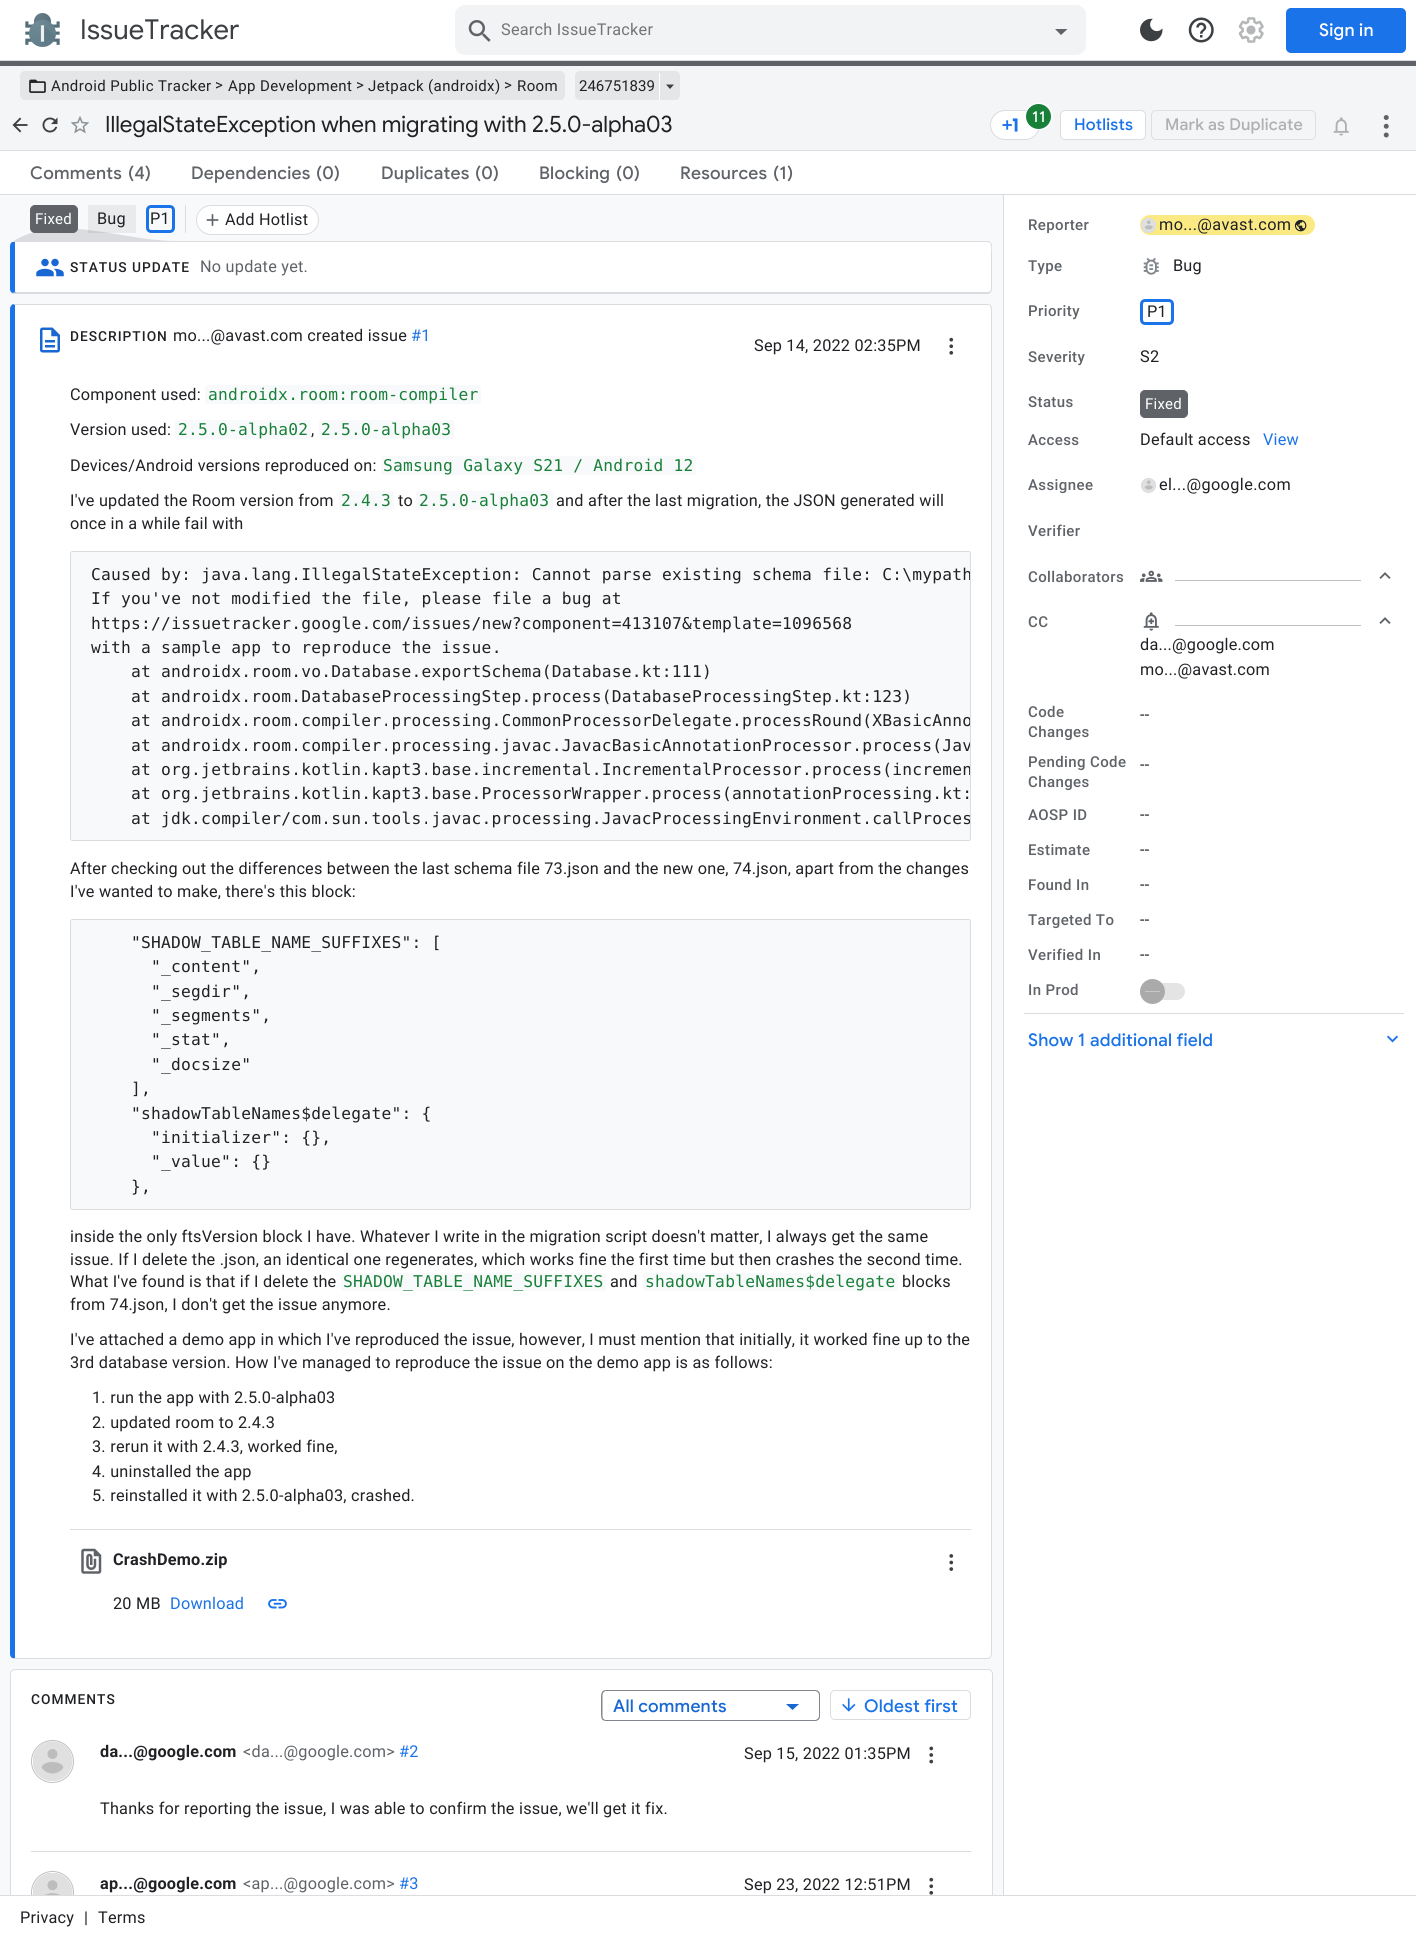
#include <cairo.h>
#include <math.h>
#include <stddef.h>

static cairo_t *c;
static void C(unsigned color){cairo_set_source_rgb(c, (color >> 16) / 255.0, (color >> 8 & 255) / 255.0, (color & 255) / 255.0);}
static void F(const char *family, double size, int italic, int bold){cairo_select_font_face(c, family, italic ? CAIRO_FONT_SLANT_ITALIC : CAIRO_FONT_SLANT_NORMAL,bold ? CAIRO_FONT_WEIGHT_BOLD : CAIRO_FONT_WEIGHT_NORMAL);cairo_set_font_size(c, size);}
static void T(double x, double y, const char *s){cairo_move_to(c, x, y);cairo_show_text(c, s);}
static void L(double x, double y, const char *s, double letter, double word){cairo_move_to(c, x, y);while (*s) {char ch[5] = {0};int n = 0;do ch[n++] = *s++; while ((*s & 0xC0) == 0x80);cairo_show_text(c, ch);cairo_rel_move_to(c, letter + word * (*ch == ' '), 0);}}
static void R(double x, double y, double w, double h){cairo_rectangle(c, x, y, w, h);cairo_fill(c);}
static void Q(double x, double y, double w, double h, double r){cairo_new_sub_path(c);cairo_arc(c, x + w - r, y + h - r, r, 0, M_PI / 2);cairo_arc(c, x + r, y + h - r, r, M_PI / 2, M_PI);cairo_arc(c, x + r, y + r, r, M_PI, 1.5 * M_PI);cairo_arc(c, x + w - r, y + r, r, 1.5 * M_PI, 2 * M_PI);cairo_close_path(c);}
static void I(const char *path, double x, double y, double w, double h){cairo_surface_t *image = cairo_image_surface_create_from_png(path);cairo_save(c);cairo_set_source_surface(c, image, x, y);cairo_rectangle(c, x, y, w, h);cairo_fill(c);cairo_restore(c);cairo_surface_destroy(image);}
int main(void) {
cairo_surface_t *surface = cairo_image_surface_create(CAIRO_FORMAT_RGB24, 1416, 1938);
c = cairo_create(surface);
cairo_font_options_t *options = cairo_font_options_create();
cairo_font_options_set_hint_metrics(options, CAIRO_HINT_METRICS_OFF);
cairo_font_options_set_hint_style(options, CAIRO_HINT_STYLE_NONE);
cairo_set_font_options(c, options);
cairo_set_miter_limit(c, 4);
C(0xffffff);
cairo_paint(c);
I("1.png",25,13,35,34);
F("Google Sans",27.5,0,0);
C(0x3c4043);
L(80,39,"IssueTracker",.2,0);
C(0xf1f3f4);
Q(455,5,631,50,10);
cairo_fill(c);
I("2.png",468,20,23,22);
F("Roboto",16.25,0,0);
C(0x757575);
L(501,35,"Search IssueTracker",.23,0);
C(0x5f6368);
cairo_new_path(c);
cairo_move_to(c,1055,29);
cairo_line_to(c,1061,35);
cairo_line_to(c,1067.5,29);
cairo_close_path(c);
cairo_fill(c);
I("3.png",1140,18,23,24);
I("4.png",1188,17,26,26);
I("5.png",1238,17,26,26);
C(0x1a73e8);
Q(1286,8,120,45,5);
cairo_fill(c);
F("Google Sans Medium",17.5,0,0);
C(0xffffff);
L(1319,36,"Sign in",.25,0);
C(0xdadce0);
R(0,60,1416,1);
C(0xf4f5f6);
R(0,66,1416,84);
C(0x5f6368);
R(0,61,1416,5);
C(0xdadce0);
R(0,150,1416,1);
C(0xe5e6e7);
Q(20,71,545,29,5);
cairo_fill(c);
I("6.png",29,79,17,14);
F("Roboto",15,0,0);
C(0x202124);
L(51,91,"Android Public Tracker",.4,0);
L(215,90,">",.4,0);
L(228,91,"App Development",.4,0);
L(356,90,">",.4,0);
L(368,91,"Jetpack (androidx)",.4,0);
L(504,90,">",.4,0);
L(517,91,"Room",.4,0);
C(0xe5e6e7);
Q(575,71,105,29,5);
cairo_fill(c);
C(0x202124);
T(579,91,"246751839");
C(0xffffff);
R(659,73,1,27);
C(0x3c4043);
cairo_new_path(c);
cairo_move_to(c,666,84.5);
cairo_line_to(c,670,89);
cairo_line_to(c,674,84.5);
cairo_close_path(c);
cairo_fill(c);
I("7.png",12,117,16,16);
I("8.png",42,117,16,16);
I("9.png",70,116,20,18);
F("Google Sans",22.5,0,0);
C(0x202124);
T(105,132,"IllegalStateException when migrating with 2.5.0-alpha03");
C(0xffffff);
Q(990.5,110.5,49,29,14.5);
cairo_fill_preserve(c);
C(0xdadce0);
cairo_set_line_width(c,1);
cairo_stroke(c);
Q(1025.5,103.5,27,26,13);
C(0xffffff);
cairo_stroke(c);
C(0x188038);
cairo_arc(c,1038.5,116.5,12.5,0,2 * M_PI);
cairo_fill(c);
F("Google Sans Medium",15,0,0);
C(0xffffff);
L(1032,122,"11",.2,0);
I("10.png",1002,118,16,14);
Q(1060.5,110.5,85,29,4.5);
cairo_fill_preserve(c);
C(0xdadce0);
cairo_stroke(c);
F("Google Sans Medium",16.25,0,0);
C(0x1a73e8);
L(1074,130,"Hotlists",.2,0);
Q(1151.5,110.5,164,29,4.5);
C(0xdedfe1);
cairo_stroke(c);
C(0xaeb0b2);
L(1165,130,"Mark as Duplicate",.2,0);
I("11.png",1333,117,16,19);
I("12.png",1383,115,6,23);
C(0xdadce0);
R(0,194,1416,1);
F("Google Sans Medium",17.5,0,0);
C(0x5f6368);
L(30,179,"Comments",.25,0);
L(128,179,"(4)",.25,0);
L(191,179,"Dependencies",.25,0);
L(316,179,"(0)",.25,0);
L(381,179,"Duplicates",.25,0);
L(475,179,"(0)",.25,0);
L(539,179,"Blocking",.25,0);
L(616,179,"(0)",.25,0);
L(680,179,"Resources",.25,0);
L(773,179,"(1)",.25,0);
C(0xf8f9fa);
R(0,195,1003,1700);
C(0xffffff);
cairo_new_path(c);
cairo_move_to(c,15,242);
cairo_line_to(c,988,242);
cairo_curve_to(c,990,242,991,244,991,246);
cairo_line_to(c,991,289);
cairo_curve_to(c,991,291,990,292,988,292);
cairo_line_to(c,15,292);
cairo_close_path(c);
cairo_fill(c);
C(0xdadce0);
cairo_new_path(c);
cairo_move_to(c,15,242);
cairo_line_to(c,12,242);
cairo_curve_to(c,58,212,121,241,176,241);
cairo_line_to(c,989,241);
cairo_line_to(c,991,243);
cairo_line_to(c,990,243);
cairo_curve_to(c,990,243,989,242,988,242);
cairo_close_path(c);
cairo_fill(c);
R(185,205,1,28);
C(0x5f6368);
Q(30.5,205.5,47,27,4.5);
cairo_fill_preserve(c);
cairo_stroke(c);
F("Roboto",15,0,0);
C(0xffffff);
L(35,224,"Fixed",.23,0);
cairo_set_source_rgba(c,0,0,0,0.06);
R(88,205,48,28);
F("Roboto",16.25,0,0);
C(0x202124);
L(97,224,"Bug",.23,0);
Q(147.5,206.5,26,25,3.5);
C(0x1a73e8);
cairo_set_line_width(c,3);
cairo_stroke(c);
C(0x202124);
L(150,224,"P1",.23,0);
C(0xffffff);
Q(196.5,205.5,122,29,14.5);
cairo_fill_preserve(c);
C(0xdadce0);
cairo_set_line_width(c,1);
cairo_stroke(c);
I("13.png",206,214,13,12);
C(0x202124);
L(225,225,"Add Hotlist",.23,0);
C(0xdadce0);
cairo_new_path(c);
cairo_move_to(c,991,243);
cairo_curve_to(c,992,244,992,245,992,246);
cairo_line_to(c,992,289);
cairo_curve_to(c,992,290,992,291,991,292);
cairo_line_to(c,990,291);
cairo_line_to(c,991,290);
cairo_line_to(c,991,253);
cairo_curve_to(c,991,252,992,246,990,243);
cairo_close_path(c);
cairo_fill(c);
cairo_new_path(c);
cairo_move_to(c,13,294);
cairo_line_to(c,12,293);
cairo_line_to(c,17,292);
cairo_line_to(c,988,292);
cairo_line_to(c,990,291);
cairo_line_to(c,991,292);
cairo_line_to(c,989,294);
cairo_close_path(c);
cairo_fill(c);
C(0x1a73e8);
cairo_new_path(c);
cairo_move_to(c,10,246);
cairo_line_to(c,10,289);
cairo_curve_to(c,10,291,11,292,12,293);
cairo_line_to(c,17,292);
cairo_line_to(c,15,292);
cairo_line_to(c,15,242);
cairo_line_to(c,12,242);
cairo_curve_to(c,11,243,10,244,10,246);
cairo_close_path(c);
cairo_fill(c);
I("14.png",36,258,28,19);
F("Roboto Medium",13.75,0,0);
C(0x202124);
L(70,272,"STATUS UPDATE",1,0);
F("Roboto",16.25,0,0);
C(0x5f6368);
L(200,272,"No update yet.",.23,0);
C(0xffffff);
cairo_new_path(c);
cairo_move_to(c,15,305);
cairo_line_to(c,988,305);
cairo_curve_to(c,990,305,991,307,991,309);
cairo_line_to(c,991,1654);
cairo_curve_to(c,991,1656,990,1658,988,1658);
cairo_line_to(c,15,1658);
cairo_close_path(c);
cairo_fill(c);
C(0xdadce0);
cairo_new_path(c);
cairo_move_to(c,15,304);
cairo_line_to(c,13,304);
cairo_line_to(c,15,305);
cairo_line_to(c,988,305);
cairo_curve_to(c,989,305,990,305,990,306);
cairo_line_to(c,991,305);
cairo_curve_to(c,990,305,989,304,988,304);
cairo_close_path(c);
cairo_fill(c);
cairo_new_path(c);
cairo_move_to(c,991,305);
cairo_line_to(c,992,309);
cairo_line_to(c,992,1654);
cairo_line_to(c,991,1657);
cairo_line_to(c,990,1657);
cairo_line_to(c,991,1654);
cairo_line_to(c,991,309);
cairo_line_to(c,990,306);
cairo_close_path(c);
cairo_fill(c);
cairo_new_path(c);
cairo_move_to(c,13,1659);
cairo_line_to(c,12,1658);
cairo_line_to(c,15,1658);
cairo_line_to(c,988,1658);
cairo_curve_to(c,989,1658,990,1657,990,1657);
cairo_line_to(c,991,1657);
cairo_line_to(c,989,1659);
cairo_close_path(c);
cairo_fill(c);
C(0x1a73e8);
cairo_new_path(c);
cairo_move_to(c,15,305);
cairo_line_to(c,13,304);
cairo_curve_to(c,11,305,10,307,10,309);
cairo_line_to(c,10,1654);
cairo_curve_to(c,10,1656,11,1657,12,1658);
cairo_line_to(c,15,1658);
cairo_close_path(c);
cairo_fill(c);
I("15.png",40,327,20,26);
F("Roboto Medium",13.75,0,0);
C(0x202124);
L(70,341,"DESCRIPTION",1,0);
F("Roboto",16.25,0,0);
L(173,341,"mo...@avast.com created issue",.23,0);
C(0x1a73e8);
L(411,341,"#1",.23,0);
C(0x202124);
L(754,351,"Sep 14, 2022 02:35PM",.23,0);
I("16.png",949,337,5,18);
L(70,400,"Component used:",.23,0);
C(0xf8f9fa);
Q(205,385,276,19,2.5);
cairo_fill(c);
F("DejaVu Sans Mono",16.25,0,0);
C(0x188038);
L(208,400,"androidx.room:room-compiler",.23,0);
F("Roboto",16.25,0,0);
C(0x202124);
L(70,435,"Version used:",.23,0);
C(0xf8f9fa);
Q(175,420,136,19,2.5);
cairo_fill(c);
F("DejaVu Sans Mono",16.25,0,0);
C(0x188038);
L(178,435,"2.5.0-alpha02",.23,0);
F("Roboto",16.25,0,0);
C(0x202124);
L(311,435,",",.23,0);
C(0xf8f9fa);
Q(319,420,135,19,2.5);
cairo_fill(c);
F("DejaVu Sans Mono",16.25,0,0);
C(0x188038);
L(321,435,"2.5.0-alpha03",.23,0);
F("Roboto",16.25,0,0);
C(0x202124);
L(70,471,"Devices/Android versions reproduced on:",.23,0);
C(0xf8f9fa);
Q(381,456,315,19,2.5);
cairo_fill(c);
F("DejaVu Sans Mono",16.25,0,0);
C(0x188038);
L(383,471,"Samsung Galaxy S21 / Android 12",.23,0);
F("Roboto",16.25,0,0);
C(0x202124);
L(70,506,"I've updated the Room version from",.23,0);
C(0xf8f9fa);
Q(339,491,55,19,2.5);
cairo_fill(c);
F("DejaVu Sans Mono",16.25,0,0);
C(0x188038);
L(341,506,"2.4.3",.23,0);
F("Roboto",16.25,0,0);
C(0x202124);
L(398,506,"to",.23,0);
C(0xf8f9fa);
Q(416,491,137,19,2.5);
cairo_fill(c);
F("DejaVu Sans Mono",16.25,0,0);
C(0x188038);
L(419,506,"2.5.0-alpha03",.23,0);
F("Roboto",16.25,0,0);
C(0x202124);
L(556,506,"and after the last migration, the JSON generated will",.23,0);
L(70,529,"once in a while fail with",.23,0);
C(0xf8f9fa);
Q(70.5,551.5,900,289,2);
cairo_fill_preserve(c);
C(0xdadce0);
cairo_stroke(c);
cairo_save(c);
Q(71,553,899,287,1);
cairo_clip(c);
F("DejaVu Sans Mono",16.25,0,0);
C(0x202124);
L(91,580,"Caused by: java.lang.IllegalStateException: Cannot parse existing schema file: C:\\mypath",.23,0);
cairo_restore(c);
F("DejaVu Sans Mono",16.25,0,0);
C(0x202124);
L(91,604,"If you've not modified the file, please file a bug at",.23,0);
L(91,629,"https://issuetracker.google.com/issues/new?component=413107&template=1096568",.23,0);
L(91,653,"with a sample app to reproduce the issue.",.23,0);
L(131,677,"at androidx.room.vo.Database.exportSchema(Database.kt:111)",.23,0);
L(131,702,"at androidx.room.DatabaseProcessingStep.process(DatabaseProcessingStep.kt:123)",.23,0);
cairo_save(c);
Q(71,553,899,287,1);
cairo_clip(c);
L(131,726,"at androidx.room.compiler.processing.CommonProcessorDelegate.processRound(XBasicAnno",.23,0);
L(131,751,"at androidx.room.compiler.processing.javac.JavacBasicAnnotationProcessor.process(Jav",.23,0);
L(131,775,"at org.jetbrains.kotlin.kapt3.base.incremental.IncrementalProcessor.process(incremen",.23,0);
cairo_restore(c);
L(131,799,"at org.jetbrains.kotlin.kapt3.base.ProcessorWrapper.process(annotationProcessing.kt:",.23,0);
cairo_save(c);
Q(71,553,899,287,1);
cairo_clip(c);
L(131,824,"at jdk.compiler/com.sun.tools.javac.processing.JavacProcessingEnvironment.callProces",.23,0);
cairo_restore(c);
F("Roboto",16.25,0,0);
L(70,874,"After checking out the differences between the last schema file 73.json and the new one, 74.json, apart from the changes",.23,0);
L(70,897,"I've wanted to make, there's this block:",.23,0);
C(0xf8f9fa);
Q(70.5,919.5,900,290,2);
cairo_fill_preserve(c);
C(0xdadce0);
cairo_stroke(c);
F("DejaVu Sans Mono",16.25,0,0);
C(0x202124);
L(131,948,"\"SHADOW_TABLE_NAME_SUFFIXES\": [",.23,0);
L(151,972,"\"_content\",",.23,0);
L(151,997,"\"_segdir\",",.23,0);
L(151,1021,"\"_segments\",",.23,0);
L(151,1045,"\"_stat\",",.23,0);
L(151,1070,"\"_docsize\"",.23,0);
L(131,1094,"],",.23,0);
L(131,1119,"\"shadowTableNames$delegate\": {",.23,0);
L(151,1143,"\"initializer\": {},",.23,0);
L(151,1167,"\"_value\": {}",.23,0);
L(131,1192,"},",.23,0);
F("Roboto",16.25,0,0);
L(70,1242,"inside the only ftsVersion block I have. Whatever I write in the migration script doesn't matter, I always get the same",.23,0);
L(70,1265,"issue. If I delete the .json, an identical one regenerates, which works fine the first time but then crashes the second time.",.23,0);
L(70,1287,"What I've found is that if I delete the",.23,0);
C(0xf8f9fa);
Q(341,1273,265,18,2.5);
cairo_fill(c);
F("DejaVu Sans Mono",16.25,0,0);
C(0x188038);
L(343,1287,"SHADOW_TABLE_NAME_SUFFIXES",.23,0);
F("Roboto",16.25,0,0);
C(0x202124);
L(610,1287,"and",.23,0);
C(0xf8f9fa);
Q(643,1273,255,18,2.5);
cairo_fill(c);
F("DejaVu Sans Mono",16.25,0,0);
C(0x188038);
L(645,1287,"shadowTableNames$delegate",.23,0);
F("Roboto",16.25,0,0);
C(0x202124);
L(902,1287,"blocks",.23,0);
L(70,1310,"from 74.json, I don't get the issue anymore.",.23,0);
L(70,1345,"I've attached a demo app in which I've reproduced the issue, however, I must mention that initially, it worked fine up to the",.23,0);
L(70,1368,"3rd database version. How I've managed to reproduce the issue on the demo app is as follows:",.23,0);
L(92,1403,"1. run the app with 2.5.0-alpha03",.23,0);
L(92,1428,"2. updated room to 2.4.3",.23,0);
L(92,1452,"3. rerun it with 2.4.3, worked fine,",.23,0);
L(92,1477,"4. uninstalled the app",.23,0);
L(92,1501,"5. reinstalled it with 2.5.0-alpha03, crashed.",.23,0);
C(0xdadce0);
R(70,1529,901,1);
I("17.png",81,1548,21,26);
F("Roboto",16.25,0,1);
C(0x202124);
L(113,1565,"CrashDemo.zip",.23,0);
I("18.png",949,1554,5,17);
F("Roboto",16.25,0,0);
L(113,1609,"20 MB",.23,0);
C(0x1a73e8);
L(170,1609,"Download",.23,0);
I("19.png",268,1599,19,10);
C(0xffffff);
cairo_new_path(c);
cairo_move_to(c,15,1669);
cairo_line_to(c,988,1669);
cairo_curve_to(c,991,1669,993,1671,993,1674);
cairo_line_to(c,993,1895);
cairo_line_to(c,10,1895);
cairo_line_to(c,10,1674);
cairo_curve_to(c,10,1671,12,1669,15,1669);
cairo_close_path(c);
cairo_fill(c);
C(0xdadce0);
R(0,1895,1416,1);
cairo_save(c);
cairo_rectangle(c,0,195,1003,1700);
cairo_clip(c);
Q(10.5,1669.5,982,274,4.5);
cairo_stroke(c);
cairo_restore(c);
F("Roboto Medium",13.75,0,0);
C(0x202124);
L(31,1704,"COMMENTS",1,0);
F("Google Sans Medium",17.5,0,0);
C(0x1967d2);
L(613,1712,"All comments",.2,0);
C(0x80868b);
cairo_set_fill_rule(c,CAIRO_FILL_RULE_EVEN_ODD);
cairo_new_path(c);
cairo_move_to(c,606,1690);
cairo_line_to(c,616,1690);
cairo_line_to(c,616,1721);
cairo_curve_to(c,600,1721,601,1723,601,1705.5);
cairo_line_to(c,601,1698.5);
cairo_curve_to(c,601,1695,601,1690,606,1690);
cairo_close_path(c);
cairo_move_to(c,606,1691);
cairo_line_to(c,616,1691);
cairo_line_to(c,616,1720);
cairo_line_to(c,606,1720);
cairo_curve_to(c,604,1720,602.5,1718.5,602.5,1716);
cairo_line_to(c,602.5,1695);
cairo_curve_to(c,602.5,1693,604,1691,606,1691);
cairo_close_path(c);
cairo_fill(c);
C(0x1967d2);
cairo_set_fill_rule(c,CAIRO_FILL_RULE_WINDING);
cairo_new_path(c);
cairo_move_to(c,786,1704);
cairo_line_to(c,792.5,1710);
cairo_line_to(c,799,1704);
cairo_close_path(c);
cairo_fill(c);
C(0x80868b);
cairo_set_fill_rule(c,CAIRO_FILL_RULE_EVEN_ODD);
cairo_new_path(c);
cairo_move_to(c,616,1690);
cairo_line_to(c,815,1690);
cairo_curve_to(c,818,1690,820,1692,820,1695);
cairo_line_to(c,820,1716);
cairo_curve_to(c,820,1719,818,1721,815,1721);
cairo_line_to(c,616,1721);
cairo_close_path(c);
cairo_move_to(c,616,1691);
cairo_line_to(c,815,1691);
cairo_curve_to(c,817,1691,819,1693,819,1695);
cairo_line_to(c,819,1716);
cairo_curve_to(c,819,1718,817,1720,815,1720);
cairo_line_to(c,616,1720);
cairo_close_path(c);
cairo_fill(c);
Q(830.5,1690.5,140,29,4.5);
C(0xdadce0);
cairo_stroke(c);
I("20.png",842,1698,14,14);
C(0x1a73e8);
L(864,1712,"Oldest first",.2,0);
C(0xdadce0);
R(31,1851,940,1);
I("21.png",33,1741,40,40);
cairo_arc(c,52.5,1761.5,21,0,2 * M_PI);
C(0xbdc1c6);
cairo_stroke(c);
F("Roboto",16.25,0,1);
C(0x202124);
L(100,1757,"da...@google.com",.23,0);
F("Roboto",16.25,0,0);
C(0x5f6368);
L(243,1757,"<da...@google.com>",.23,0);
C(0x1a73e8);
L(399,1757,"#2",.23,0);
C(0x202124);
L(744,1759,"Sep 15, 2022 01:35PM",.23,0);
I("22.png",929,1746,5,18);
L(100,1814,"Thanks for reporting the issue, I was able to confirm the issue, we'll get it fix.",.23,0);
I("23.png",33,1873,40,22);
L(20,1923,"Privacy",.23,0);
cairo_save(c);
cairo_set_fill_rule(c,CAIRO_FILL_RULE_WINDING);
cairo_rectangle(c,0,195,1003,1700);
cairo_clip(c);
cairo_arc(c,52.5,1892.5,21,0,2 * M_PI);
C(0xbdc1c6);
cairo_stroke(c);
cairo_restore(c);
F("Roboto",16.25,0,1);
L(100,1889,"ap...@google.com",.23,0);
F("Roboto",16.25,0,0);
C(0x5f6368);
L(243,1889,"<ap...@google.com>",.23,0);
C(0x1a73e8);
L(399,1889,"#3",.23,0);
C(0x202124);
L(744,1890,"Sep 23, 2022 12:51PM",.23,0);
I("16.png",929,1877,5,18);
C(0xdadce0);
R(1003,195,1,1700);
F("Roboto Medium",15,0,0);
C(0x5f6368);
L(1028,230,"Reporter",.4,0);
C(0xfbe983);
Q(1140,215,175,20,10);
cairo_fill(c);
I("24.png",1141,218,15,15);
cairo_arc(c,1148.5,225.5,7,0,2 * M_PI);
C(0xdadce0);
cairo_stroke(c);
F("Roboto",16.25,0,0);
C(0x202124);
L(1159,230,"mo...@avast.com",.4,0);
I("25.png",1294,219,13,13);
F("Roboto Medium",15,0,0);
C(0x5f6368);
L(1028,271,"Type",.4,0);
I("26.png",1143,257,16,18);
F("Roboto",16.25,0,0);
C(0x202124);
L(1173,271,"Bug",.23,0);
F("Roboto Medium",15,0,0);
C(0x5f6368);
L(1028,316,"Priority",.4,0);
Q(1141.5,300.5,31,23,3.5);
C(0x1a73e8);
cairo_set_line_width(c,3);
cairo_stroke(c);
F("Roboto",16.25,0,0);
C(0x202124);
L(1147,317,"P1",.23,0);
F("Roboto Medium",15,0,0);
C(0x5f6368);
L(1028,362,"Severity",.4,0);
F("Roboto",16.25,0,0);
C(0x202124);
L(1140,362,"S2",.23,0);
F("Roboto Medium",15,0,0);
C(0x5f6368);
L(1028,407,"Status",.4,0);
Q(1140.5,390.5,47,27,4.5);
cairo_fill_preserve(c);
cairo_set_line_width(c,1);
cairo_stroke(c);
F("Roboto",15,0,0);
C(0xffffff);
L(1145,409,"Fixed",.23,0);
F("Roboto Medium",15,0,0);
C(0x5f6368);
L(1028,445,"Access",.4,0);
F("Roboto",16.25,0,0);
C(0x202124);
L(1140,445,"Default access",.23,0);
C(0x1a73e8);
L(1263,445,"View",.23,0);
F("Roboto Medium",15,0,0);
C(0x5f6368);
L(1028,490,"Assignee",.4,0);
I("27.png",1141,478,15,15);
cairo_arc(c,1148.5,485.5,7,0,2 * M_PI);
C(0xdadce0);
cairo_stroke(c);
F("Roboto",16.25,0,0);
C(0x202124);
L(1159,490,"el...@google.com",.4,0);
F("Roboto Medium",15,0,0);
C(0x5f6368);
L(1028,536,"Verifier",.4,0);
L(1028,582,"Collaborators",.4,0);
I("28.png",1140,570,23,12);
I("29.png",1379,572,12,7);
C(0xbdc1c6);
R(1175,580,186,1);
C(0x5f6368);
L(1028,627,"CC",.4,0);
I("30.png",1143,612,16,19);
I("29.png",1379,617,12,7);
C(0xbdc1c6);
R(1175,625,186,1);
F("Roboto",16.25,0,0);
C(0x202124);
L(1140,650,"da...@google.com",.23,0);
L(1140,675,"mo...@avast.com",.23,0);
F("Roboto Medium",15,0,0);
C(0x5f6368);
L(1028,717,"Code",.4,0);
L(1028,737,"Changes",.4,0);
F("Roboto",16.25,0,0);
C(0x202124);
L(1140,720,"--",.23,0);
F("Roboto Medium",15,0,0);
C(0x5f6368);
L(1028,767,"Pending Code",.4,0);
L(1028,787,"Changes",.4,0);
F("Roboto",16.25,0,0);
C(0x202124);
L(1140,770,"--",.23,0);
F("Roboto Medium",15,0,0);
C(0x5f6368);
L(1028,820,"AOSP ID",.4,0);
F("Roboto",16.25,0,0);
C(0x202124);
L(1140,820,"--",.23,0);
F("Roboto Medium",15,0,0);
C(0x5f6368);
L(1028,855,"Estimate",.4,0);
F("Roboto",16.25,0,0);
C(0x202124);
L(1140,855,"--",.23,0);
F("Roboto Medium",15,0,0);
C(0x5f6368);
L(1028,890,"Found In",.4,0);
F("Roboto",16.25,0,0);
C(0x202124);
L(1140,890,"--",.23,0);
F("Roboto Medium",15,0,0);
C(0x5f6368);
L(1028,925,"Targeted To",.4,0);
F("Roboto",16.25,0,0);
C(0x202124);
L(1140,925,"--",.23,0);
F("Roboto Medium",15,0,0);
C(0x5f6368);
L(1028,960,"Verified In",.4,0);
F("Roboto",16.25,0,0);
C(0x202124);
L(1140,960,"--",.23,0);
F("Roboto Medium",15,0,0);
C(0x5f6368);
L(1028,995,"In Prod",.4,0);
C(0xe4e4e5);
Q(1140,983,45,17,8.5);
cairo_fill(c);
C(0xffffff);
cairo_arc(c,1152.5,991.5,12.5,0,2 * M_PI);
cairo_fill(c);
cairo_set_source_rgba(c,0.125,0.129,0.141,0.38);
cairo_arc(c,1152.5,991.5,12.5,0,2 * M_PI);
cairo_fill(c);
C(0xc7c7c8);
R(1145,991,15,1);
C(0xdadce0);
R(1024,1013,380,1);
F("Google Sans Medium",17.5,0,0);
C(0x1a73e8);
L(1028,1046,"Show 1 additional field",.2,0);
I("31.png",1387,1035,11,8);
F("Roboto",16.25,0,0);
C(0x202124);
L(84,1923,"|",.23,0);
L(98,1923,"Terms",.23,0);
cairo_surface_write_to_png(surface, "o.png");
cairo_font_options_destroy(options);
cairo_destroy(c);
cairo_surface_destroy(surface);
return 0;
}
